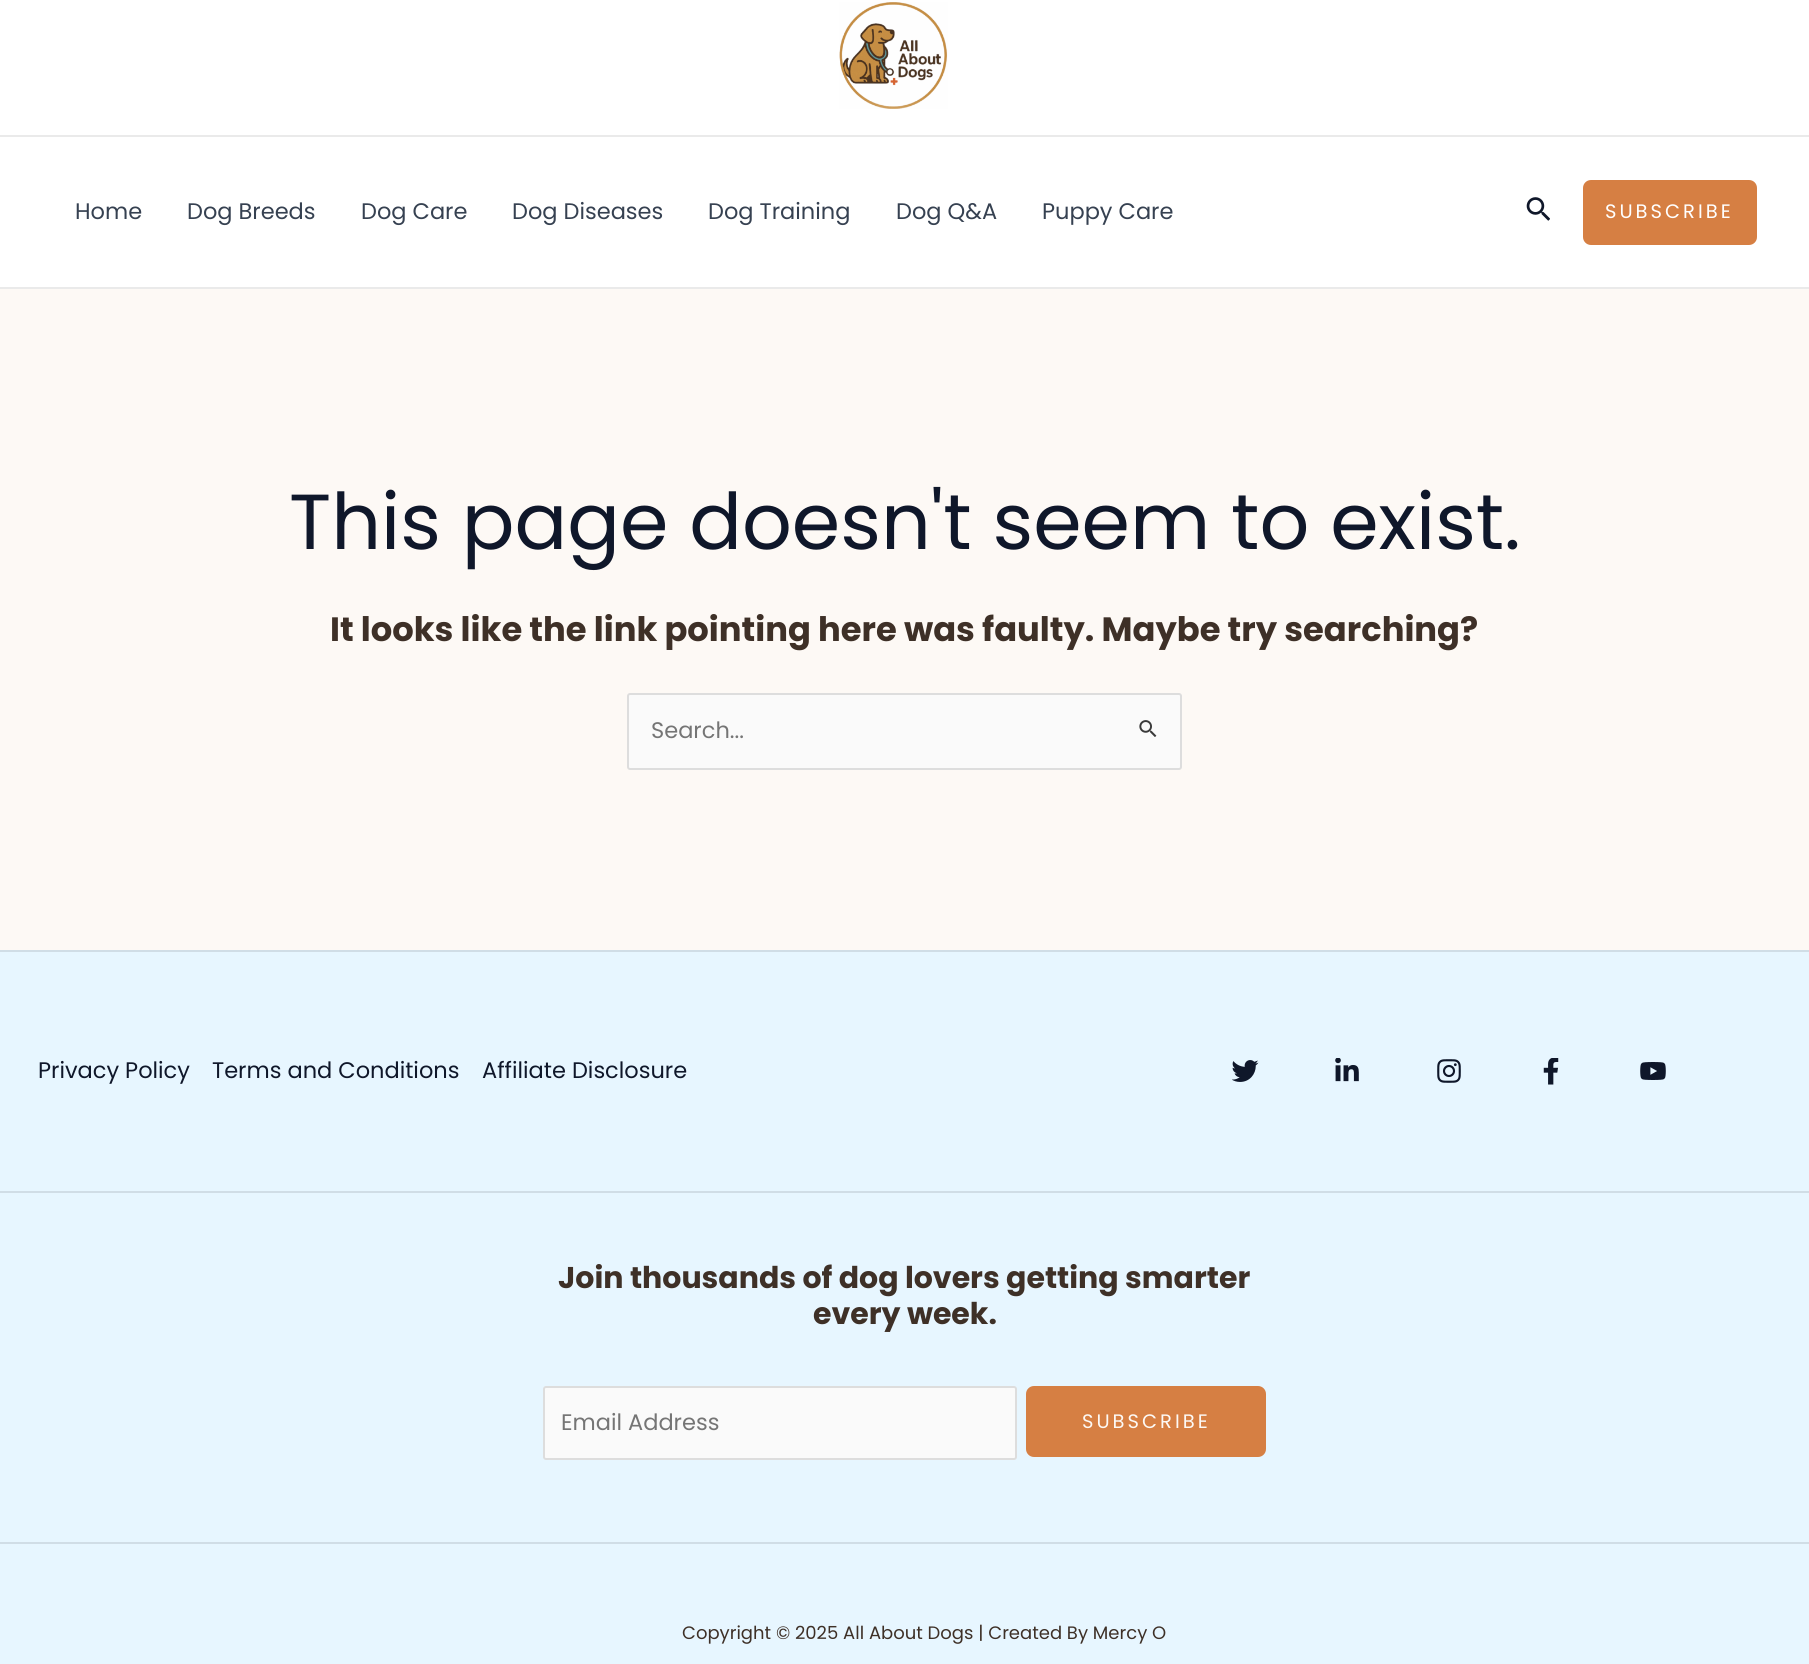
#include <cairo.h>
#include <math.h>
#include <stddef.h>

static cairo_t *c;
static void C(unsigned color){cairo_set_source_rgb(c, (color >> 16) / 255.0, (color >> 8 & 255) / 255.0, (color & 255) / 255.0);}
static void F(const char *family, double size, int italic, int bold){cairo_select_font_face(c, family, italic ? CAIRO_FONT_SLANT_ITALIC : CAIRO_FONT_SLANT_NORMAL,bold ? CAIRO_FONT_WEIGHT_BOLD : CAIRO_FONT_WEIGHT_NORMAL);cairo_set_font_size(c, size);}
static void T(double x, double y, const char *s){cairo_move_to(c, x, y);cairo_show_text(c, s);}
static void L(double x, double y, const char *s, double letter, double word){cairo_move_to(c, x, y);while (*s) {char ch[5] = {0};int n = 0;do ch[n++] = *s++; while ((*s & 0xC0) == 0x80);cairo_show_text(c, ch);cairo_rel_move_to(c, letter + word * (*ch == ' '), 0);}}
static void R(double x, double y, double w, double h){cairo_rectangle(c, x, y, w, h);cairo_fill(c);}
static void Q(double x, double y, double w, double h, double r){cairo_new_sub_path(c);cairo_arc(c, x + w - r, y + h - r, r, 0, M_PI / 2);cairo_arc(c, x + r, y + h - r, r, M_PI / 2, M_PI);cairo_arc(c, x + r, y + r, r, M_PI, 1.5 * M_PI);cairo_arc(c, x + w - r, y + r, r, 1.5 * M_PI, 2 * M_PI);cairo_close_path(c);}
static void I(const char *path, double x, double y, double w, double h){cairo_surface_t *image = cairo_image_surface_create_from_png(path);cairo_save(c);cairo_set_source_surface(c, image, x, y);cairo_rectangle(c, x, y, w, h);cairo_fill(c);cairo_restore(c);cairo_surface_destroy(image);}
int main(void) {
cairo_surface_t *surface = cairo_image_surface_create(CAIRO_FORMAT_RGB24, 1809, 1664);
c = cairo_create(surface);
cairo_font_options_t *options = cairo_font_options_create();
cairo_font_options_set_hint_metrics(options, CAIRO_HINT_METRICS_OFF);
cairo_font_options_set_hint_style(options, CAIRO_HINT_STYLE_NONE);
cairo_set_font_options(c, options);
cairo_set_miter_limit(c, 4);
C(0xfdf9f5);
cairo_paint(c);
C(0xffffff);
R(0,0,1809,135);
C(0xeaeaea);
R(0,135,1809,2);
I("1.png",839,2,109,107);
C(0xffffff);
R(0,137,1809,150);
C(0xeaeaea);
R(0,287,1809,2);
F("Poppins",22.5,0,0);
C(0x364151);
T(75,219,"Home");
T(187,219,"Dog Breeds");
T(361,219,"Dog Care");
T(512,219,"Dog Diseases");
T(708,219,"Dog Training");
T(896,219,"Dog Q&A");
T(1042,219,"Puppy Care");
I("2.png",1526,197,24,24);
C(0xd67f43);
Q(1583,180,174,65,8);
cairo_fill(c);
F("Poppins",19.5,0,0);
C(0xffffff);
L(1605,218,"SUBSCRIBE",3,0);
F("Poppins",78,0,0);
C(0x0f172a);
T(289,549,"This page doesn't seem to exist.");
F("Poppins",33.75,0,1);
C(0x3e3027);
T(330,641,"It looks like the link pointing here was faulty. Maybe try searching?");
C(0xfafafa);
Q(628,694,553,75,2);
cairo_fill_preserve(c);
C(0xdddddd);
cairo_stroke(c);
F("Poppins",22.5,0,0);
C(0x757575);
T(651,738,"Search...");
I("3.png",1139,720,18,17);
C(0xe7f6ff);
R(0,952,1809,712);
C(0xd0dde6);
R(0,950,1809,2);
C(0x0f172a);
T(38,1078,"Privacy Policy");
T(212,1078,"Terms and Conditions");
T(482,1078,"Affiliate Disclosure");
I("4.png",1232,1060,27,22);
I("5.png",1335,1058,24,24);
I("6.png",1437,1059,24,24);
I("7.png",1543,1058,16,27);
I("8.png",1640,1062,26,18);
C(0xd0dde6);
R(0,1191,1809,2);
F("Poppins",30,0,1);
C(0x3e3027);
T(558,1288,"Join thousands of dog lovers getting smarter");
T(813,1324,"every week.");
C(0xfafafa);
Q(544,1387,472,72,2);
cairo_fill_preserve(c);
C(0xdddddd);
cairo_stroke(c);
F("Poppins",22.5,0,0);
C(0x757575);
T(561,1430,"Email Address");
C(0xd67f43);
Q(1026,1386,240,71,8);
cairo_fill(c);
F("Poppins",19.5,0,0);
C(0xfdf9f5);
L(1082,1428,"SUBSCRIBE",3,0);
C(0xd0dde6);
R(0,1542,1809,2);
F("Poppins",18,0,0);
C(0x3e3027);
T(682,1639,"Copyright © 2025 All About Dogs | Created By Mercy O");
cairo_surface_write_to_png(surface, "o.png");
cairo_font_options_destroy(options);
cairo_destroy(c);
cairo_surface_destroy(surface);
return 0;
}
